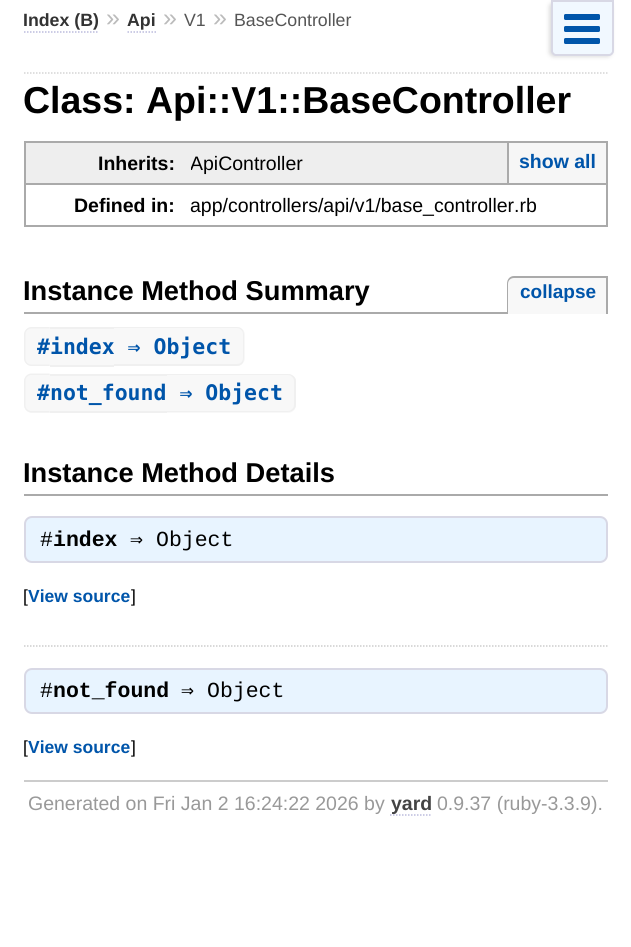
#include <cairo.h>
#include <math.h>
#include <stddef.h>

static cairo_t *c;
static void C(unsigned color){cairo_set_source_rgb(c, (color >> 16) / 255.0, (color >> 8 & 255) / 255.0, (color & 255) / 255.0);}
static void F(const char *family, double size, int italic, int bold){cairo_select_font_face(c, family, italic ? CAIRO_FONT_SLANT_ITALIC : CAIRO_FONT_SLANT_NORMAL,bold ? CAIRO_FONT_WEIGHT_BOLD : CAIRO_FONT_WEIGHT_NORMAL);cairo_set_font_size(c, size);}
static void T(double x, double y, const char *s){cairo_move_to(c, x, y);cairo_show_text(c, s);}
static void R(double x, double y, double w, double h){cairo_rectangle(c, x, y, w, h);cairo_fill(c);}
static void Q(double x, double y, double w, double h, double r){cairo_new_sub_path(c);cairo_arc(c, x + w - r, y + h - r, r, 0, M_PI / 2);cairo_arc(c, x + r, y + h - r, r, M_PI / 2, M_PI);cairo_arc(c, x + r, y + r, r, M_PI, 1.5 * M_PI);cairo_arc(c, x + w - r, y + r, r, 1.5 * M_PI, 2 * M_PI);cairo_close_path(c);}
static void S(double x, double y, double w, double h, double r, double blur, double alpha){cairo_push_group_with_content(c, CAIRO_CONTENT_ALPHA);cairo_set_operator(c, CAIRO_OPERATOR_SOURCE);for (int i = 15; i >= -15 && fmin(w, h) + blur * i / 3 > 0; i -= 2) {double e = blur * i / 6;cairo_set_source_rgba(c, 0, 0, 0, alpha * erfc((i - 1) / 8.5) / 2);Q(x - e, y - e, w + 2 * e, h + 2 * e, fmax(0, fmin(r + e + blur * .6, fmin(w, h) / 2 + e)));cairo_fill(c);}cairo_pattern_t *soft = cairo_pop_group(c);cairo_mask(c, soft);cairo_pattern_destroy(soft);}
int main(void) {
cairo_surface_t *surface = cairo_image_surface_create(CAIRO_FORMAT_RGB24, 631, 947);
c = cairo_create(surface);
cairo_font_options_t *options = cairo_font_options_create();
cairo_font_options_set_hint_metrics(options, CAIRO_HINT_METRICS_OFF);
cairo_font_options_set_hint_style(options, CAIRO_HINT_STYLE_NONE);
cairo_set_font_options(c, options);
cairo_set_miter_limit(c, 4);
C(0xffffff);
cairo_paint(c);
F("Liberation Sans",17.75,0,1);
C(0x333333);
T(23,26,"Index (B)");
cairo_new_path(c);
cairo_move_to(c,24,32);
cairo_line_to(c,99,32);
C(0xbbbbdd);
cairo_set_line_width(c,1.5);
cairo_set_dash(c,(double[]){1.5,1.5},2,0);
cairo_stroke(c);
F("Liberation Sans",25,0,0);
C(0xbbbbbb);
T(106,26,"»");
F("Liberation Sans",17.75,0,1);
C(0x333333);
T(127,26,"Api");
cairo_new_path(c);
cairo_move_to(c,127.5,32);
cairo_line_to(c,156,32);
C(0xbbbbdd);
cairo_stroke(c);
F("Liberation Sans",25,0,0);
C(0xbbbbbb);
T(163,26,"»");
F("Liberation Sans",17.75,0,0);
C(0x555555);
T(184,26,"V1");
F("Liberation Sans",25,0,0);
C(0xbbbbbb);
T(213,26,"»");
F("Liberation Sans",17.75,0,0);
C(0x555555);
T(234,26,"BaseController");
C(0xdddddd);
S(549,2,63,55,5,2,1);
C(0xf1f8ff);
cairo_new_path(c);
cairo_move_to(c,552,1);
cairo_line_to(c,613,1);
cairo_line_to(c,613,51);
cairo_curve_to(c,613,53,611,55,609,55);
cairo_line_to(c,556,55);
cairo_curve_to(c,554,55,552,53,552,51);
cairo_close_path(c);
cairo_fill_preserve(c);
C(0xd8d8e5);
cairo_set_line_width(c,2);
cairo_set_dash(c,NULL,0,0);
cairo_stroke(c);
C(0x0055aa);
Q(564,14,36,6,1.5);
cairo_fill(c);
Q(564,26,36,6,1.5);
cairo_fill(c);
Q(564,38,36,6,1.5);
cairo_fill(c);
cairo_new_path(c);
cairo_move_to(c,24,73);
cairo_line_to(c,607.5,73);
C(0xd5d5d5);
cairo_set_line_width(c,1.5);
cairo_set_dash(c,(double[]){1.5,1.5},2,0);
cairo_stroke(c);
F("Liberation Sans",37.5,0,1);
C(0x000000);
T(23,113,"Class: Api::V1::BaseController");
C(0xeeeeee);
R(26,143,481,40);
C(0xaaaaaa);
R(24,141,584,2);
R(24,141,2,42);
F("Liberation Sans",19.5,0,1);
C(0x000000);
T(98,170,"Inherits:");
C(0xaaaaaa);
R(24,183,584,2);
R(606,141,2,86);
cairo_save(c);
cairo_rectangle(c,191,143,415,40);
cairo_clip(c);
F("Liberation Sans",19.5,0,0);
C(0x000000);
T(190,170,"ApiController");
cairo_restore(c);
C(0xf6f6f6);
R(509,143,97,40);
C(0xaaaaaa);
R(507,143,2,40);
C(0x0055aa);
T(519,168,"show all");
C(0xaaaaaa);
R(24,225,167,2);
R(24,183,2,44);
C(0x000000);
T(74,212,"Defined in:");
C(0xaaaaaa);
R(191,225,417,2);
F("Liberation Sans",19.5,0,0);
C(0x000000);
T(190,212,"app/controllers/api/v1/base_controller.rb");
C(0xaaaaaa);
R(24,312,483,2);
F("Liberation Sans",27.25,0,1);
C(0x000000);
T(23,300,"Instance Method Summary");
C(0xf8f8f8);
cairo_new_path(c);
cairo_move_to(c,515,276);
cairo_line_to(c,608,276);
cairo_line_to(c,608,314);
cairo_line_to(c,507,314);
cairo_line_to(c,507,284);
cairo_curve_to(c,507,279.5,510.5,276,515,276);
cairo_close_path(c);
cairo_fill(c);
C(0xaaaaaa);
cairo_set_fill_rule(c,CAIRO_FILL_RULE_EVEN_ODD);
cairo_new_path(c);
cairo_move_to(c,514,276);
cairo_line_to(c,608,276);
cairo_line_to(c,608,314);
cairo_line_to(c,507,314);
cairo_line_to(c,507,284);
cairo_curve_to(c,507,279,510,276,514,276);
cairo_close_path(c);
cairo_move_to(c,514,278);
cairo_line_to(c,606,278);
cairo_line_to(c,606,314);
cairo_line_to(c,508,314);
cairo_line_to(c,508,284);
cairo_curve_to(c,508,280,511,278,514,278);
cairo_close_path(c);
cairo_fill(c);
F("Liberation Sans",19,0,1);
C(0x0055aa);
T(520,298,"collapse");
C(0xf8f8f8);
cairo_new_path(c);
cairo_move_to(c,32,327);
cairo_line_to(c,50,327);
cairo_line_to(c,50,366);
cairo_line_to(c,32,366);
cairo_curve_to(c,27.5,366,24,362.5,24,358);
cairo_line_to(c,24,335);
cairo_curve_to(c,24,330.5,27.5,327,32,327);
cairo_close_path(c);
cairo_fill(c);
C(0xf0f0f0);
cairo_new_path(c);
cairo_move_to(c,31.5,327);
cairo_line_to(c,49.5,327);
cairo_line_to(c,49.5,366);
cairo_line_to(c,31.5,366);
cairo_curve_to(c,27.5,366,24,362.5,24,358.5);
cairo_line_to(c,24,334.5);
cairo_curve_to(c,24,330.5,27.5,327,31.5,327);
cairo_close_path(c);
cairo_move_to(c,31.5,328.5);
cairo_line_to(c,49.5,328.5);
cairo_line_to(c,49.5,364.5);
cairo_line_to(c,31.5,364.5);
cairo_curve_to(c,28,364.5,25.5,362,25.5,358.5);
cairo_line_to(c,25.5,334.5);
cairo_curve_to(c,25.5,331,28,328.5,31.5,328.5);
cairo_close_path(c);
cairo_fill(c);
C(0xf8f8f8);
R(50,329,64,36);
cairo_new_path(c);
cairo_move_to(c,114,327);
cairo_line_to(c,237,327);
cairo_curve_to(c,241.5,327,245,330.5,245,335);
cairo_line_to(c,245,358);
cairo_curve_to(c,245,362.5,241.5,366,237,366);
cairo_line_to(c,114,366);
cairo_close_path(c);
cairo_fill(c);
C(0xf0f0f0);
cairo_new_path(c);
cairo_move_to(c,114,327);
cairo_line_to(c,237,327);
cairo_curve_to(c,241,327,244,330,244,334);
cairo_line_to(c,244,358);
cairo_curve_to(c,244,363,241,366,237,366);
cairo_line_to(c,114,366);
cairo_close_path(c);
cairo_move_to(c,114,328);
cairo_line_to(c,237,328);
cairo_curve_to(c,240,328,243,331,243,334);
cairo_line_to(c,243,358);
cairo_curve_to(c,243,362,240,364,237,364);
cairo_line_to(c,114,364);
cairo_close_path(c);
cairo_fill(c);
F("DejaVu Sans Mono",21.5,0,1);
C(0x0055aa);
T(37,354,"#index ⇒ Object");
C(0xf0f0f0);
R(50,327,64,2);
R(50,365,64,2);
C(0xf8f8f8);
cairo_new_path(c);
cairo_move_to(c,32,374);
cairo_line_to(c,50,374);
cairo_line_to(c,50,413);
cairo_line_to(c,32,413);
cairo_curve_to(c,27.5,413,24,409.5,24,405);
cairo_line_to(c,24,382);
cairo_curve_to(c,24,377.5,27.5,374,32,374);
cairo_close_path(c);
cairo_fill(c);
C(0xf0f0f0);
cairo_new_path(c);
cairo_move_to(c,31.5,373.5);
cairo_line_to(c,49.5,373.5);
cairo_line_to(c,49.5,412.5);
cairo_line_to(c,31.5,412.5);
cairo_curve_to(c,27.5,412.5,24,409,24,405);
cairo_line_to(c,24,381);
cairo_curve_to(c,24,377,27.5,373.5,31.5,373.5);
cairo_close_path(c);
cairo_move_to(c,31.5,375);
cairo_line_to(c,49.5,375);
cairo_line_to(c,49.5,411);
cairo_line_to(c,31.5,411);
cairo_curve_to(c,28,411,25.5,408.5,25.5,405);
cairo_line_to(c,25.5,381);
cairo_curve_to(c,25.5,377.5,28,375,31.5,375);
cairo_close_path(c);
cairo_fill(c);
C(0xf8f8f8);
R(50,376,117,35);
cairo_new_path(c);
cairo_move_to(c,167,374);
cairo_line_to(c,288,374);
cairo_curve_to(c,292.5,374,296,377.5,296,382);
cairo_line_to(c,296,405);
cairo_curve_to(c,296,409.5,292.5,413,288,413);
cairo_line_to(c,167,413);
cairo_close_path(c);
cairo_fill(c);
C(0xf0f0f0);
R(50,374,117,2);
R(50,411,117,2);
cairo_new_path(c);
cairo_move_to(c,166,374);
cairo_line_to(c,288,374);
cairo_curve_to(c,292,374,296,377,296,381);
cairo_line_to(c,296,405);
cairo_curve_to(c,296,409,292,412,288,412);
cairo_line_to(c,166,412);
cairo_close_path(c);
cairo_move_to(c,166,375);
cairo_line_to(c,288,375);
cairo_curve_to(c,291,375,294,378,294,381);
cairo_line_to(c,294,405);
cairo_curve_to(c,294,408,291,411,288,411);
cairo_line_to(c,166,411);
cairo_close_path(c);
cairo_fill(c);
C(0x0055aa);
T(37,400,"#not_found ⇒ Object");
C(0xaaaaaa);
R(24,494,584,2);
F("Liberation Sans",27.25,0,1);
C(0x000000);
T(23,482,"Instance Method Details");
C(0xe8f4ff);
Q(25,517,582,45,7);
cairo_fill_preserve(c);
C(0xd8d8e5);
cairo_set_line_width(c,2);
cairo_set_dash(c,NULL,0,0);
cairo_stroke(c);
F("Liberation Mono",21.5,0,0);
C(0x000000);
T(40,546,"#");
F("Liberation Mono",21.5,0,1);
T(53,546,"index");
F("DejaVu Sans Mono",21.5,0,0);
T(130,546,"⇒");
F("Liberation Mono",21.5,0,0);
T(156,546,"Object");
F("Liberation Sans",17.5,0,0);
T(23,602,"[");
F("Liberation Sans",17.5,0,1);
C(0x0055aa);
T(28,602,"View source");
F("Liberation Sans",17.5,0,0);
C(0x000000);
T(131,602,"]");
cairo_new_path(c);
cairo_move_to(c,24,646);
cairo_line_to(c,607.5,646);
C(0xcccccc);
cairo_set_line_width(c,1.5);
cairo_set_dash(c,(double[]){1.5,1.5},2,0);
cairo_stroke(c);
C(0xe8f4ff);
Q(25,669,582,44,7);
cairo_fill_preserve(c);
C(0xd8d8e5);
cairo_set_line_width(c,2);
cairo_set_dash(c,NULL,0,0);
cairo_stroke(c);
F("Liberation Mono",21.5,0,0);
C(0x000000);
T(40,697,"#");
F("Liberation Mono",21.5,0,1);
T(53,697,"not_found");
F("DejaVu Sans Mono",21.5,0,0);
T(181,697,"⇒");
F("Liberation Mono",21.5,0,0);
T(207,697,"Object");
F("Liberation Sans",17.5,0,0);
T(23,753,"[");
F("Liberation Sans",17.5,0,1);
C(0x0055aa);
T(28,753,"View source");
F("Liberation Sans",17.5,0,0);
C(0x000000);
T(131,753,"]");
C(0xcccccc);
R(24,780,584,2);
F("Liberation Sans",19.5,0,0);
C(0x999999);
T(28,810,"Generated on Fri Jan 2 16:24:22 2026 by");
cairo_new_path(c);
cairo_move_to(c,390,815);
cairo_line_to(c,432,815);
C(0xbbbbdd);
cairo_set_line_width(c,1.5);
cairo_set_dash(c,(double[]){1.5,1.5},2,0);
cairo_stroke(c);
F("Liberation Sans",19.5,0,1);
C(0x444444);
T(391,810,"yard");
F("Liberation Sans",19.5,0,0);
C(0x999999);
T(437,810,"0.9.37 (ruby-3.3.9).");
cairo_surface_write_to_png(surface, "o.png");
cairo_font_options_destroy(options);
cairo_destroy(c);
cairo_surface_destroy(surface);
return 0;
}
